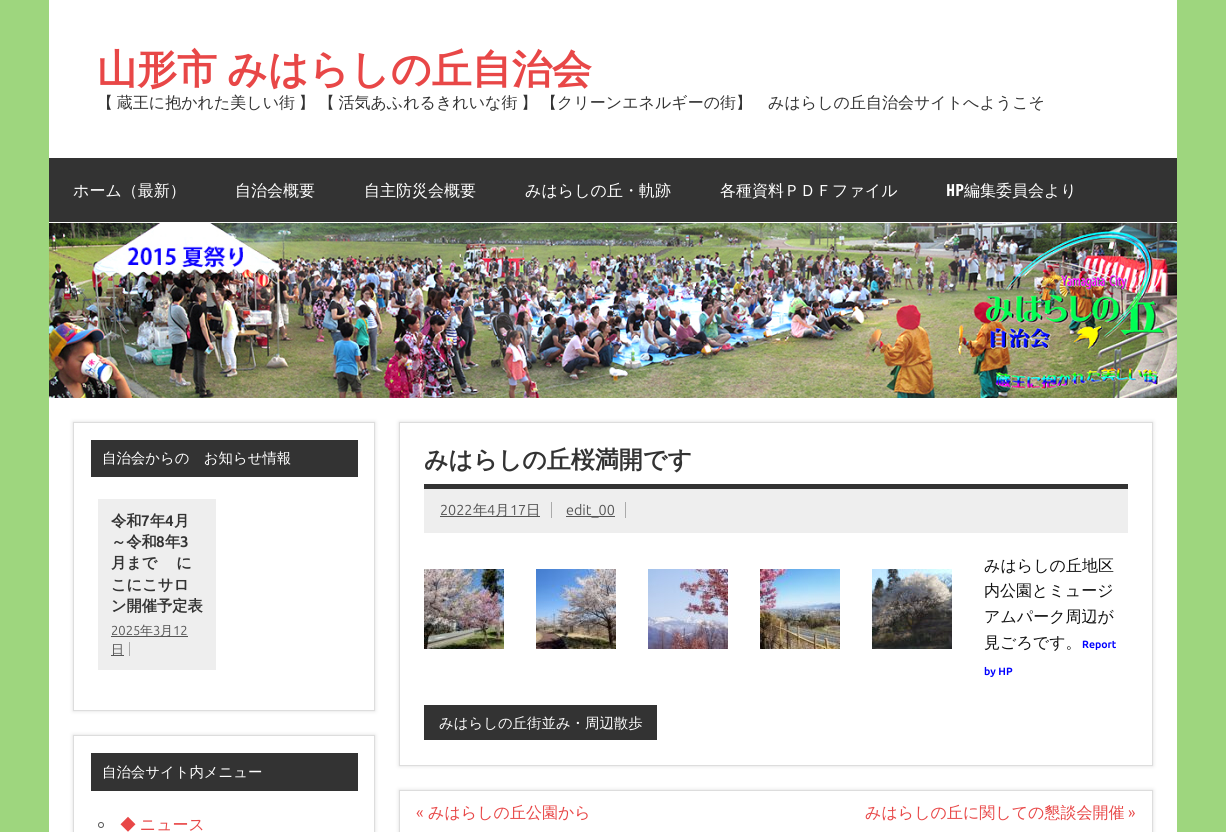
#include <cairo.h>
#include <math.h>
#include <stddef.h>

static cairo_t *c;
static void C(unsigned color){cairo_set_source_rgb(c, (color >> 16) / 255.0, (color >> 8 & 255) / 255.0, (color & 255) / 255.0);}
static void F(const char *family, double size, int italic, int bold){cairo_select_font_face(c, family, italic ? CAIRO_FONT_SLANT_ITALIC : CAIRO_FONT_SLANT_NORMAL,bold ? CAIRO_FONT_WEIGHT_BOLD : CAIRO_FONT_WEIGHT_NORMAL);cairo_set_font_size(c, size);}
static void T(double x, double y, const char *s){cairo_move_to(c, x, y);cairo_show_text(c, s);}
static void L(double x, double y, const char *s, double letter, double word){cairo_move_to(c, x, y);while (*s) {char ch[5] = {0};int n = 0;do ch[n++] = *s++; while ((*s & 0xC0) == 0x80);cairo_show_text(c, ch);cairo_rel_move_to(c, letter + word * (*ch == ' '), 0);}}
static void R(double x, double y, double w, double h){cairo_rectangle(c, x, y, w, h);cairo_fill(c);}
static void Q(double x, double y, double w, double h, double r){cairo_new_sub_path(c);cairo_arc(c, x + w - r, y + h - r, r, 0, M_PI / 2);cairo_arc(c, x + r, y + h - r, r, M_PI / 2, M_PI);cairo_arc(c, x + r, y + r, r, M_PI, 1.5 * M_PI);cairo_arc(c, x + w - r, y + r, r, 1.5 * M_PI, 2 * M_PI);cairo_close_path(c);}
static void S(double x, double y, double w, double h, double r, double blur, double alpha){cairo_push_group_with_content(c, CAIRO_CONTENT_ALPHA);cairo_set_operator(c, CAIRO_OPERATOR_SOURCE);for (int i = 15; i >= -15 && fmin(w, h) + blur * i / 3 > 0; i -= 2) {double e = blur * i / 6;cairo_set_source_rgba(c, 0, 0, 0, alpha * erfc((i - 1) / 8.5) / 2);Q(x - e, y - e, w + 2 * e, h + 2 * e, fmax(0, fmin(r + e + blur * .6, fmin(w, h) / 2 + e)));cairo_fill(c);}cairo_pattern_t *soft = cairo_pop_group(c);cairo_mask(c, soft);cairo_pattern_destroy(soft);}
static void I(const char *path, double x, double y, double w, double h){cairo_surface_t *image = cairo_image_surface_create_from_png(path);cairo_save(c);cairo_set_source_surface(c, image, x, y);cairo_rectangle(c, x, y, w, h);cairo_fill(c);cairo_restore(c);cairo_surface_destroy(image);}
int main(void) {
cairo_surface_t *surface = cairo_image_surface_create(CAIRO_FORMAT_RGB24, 1226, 832);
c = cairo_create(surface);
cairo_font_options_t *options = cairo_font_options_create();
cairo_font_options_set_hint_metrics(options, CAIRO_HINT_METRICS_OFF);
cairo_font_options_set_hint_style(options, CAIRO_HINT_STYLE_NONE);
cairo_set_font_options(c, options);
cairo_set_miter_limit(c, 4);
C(0x9ed67e);
cairo_paint(c);
C(0xffffff);
R(49,0,1128,832);
F("WenQuanYi Zen Hei",40,0,1);
C(0xe84747);
L(97,83,"山形市 みはらしの丘自治会",0,-2);
F("WenQuanYi Zen Hei Medium",16,0,0);
C(0x333333);
L(97,108,"【 蔵王に抱かれた美しい街 】 【 活気あふれるきれいな街 】 【クリーンエネルギーの街】　みはらしの丘自治会サイトへようこそ",0,-1);
R(49,158,1128,64);
C(0xffffff);
T(73,196,"ホーム（最新）");
T(235,196,"自治会概要");
T(364,196,"自主防災会概要");
T(525,196,"みはらしの丘・軌跡");
T(720,196,"各種資料ＰＤＦファイル");
F("Francois One",16,0,0);
T(946,196,"HP");
F("WenQuanYi Zen Hei Medium",16,0,0);
T(964,196,"編集委員会より");
I("1.png",49,223,1128,175);
cairo_save(c);
cairo_set_fill_rule(c,CAIRO_FILL_RULE_EVEN_ODD);
cairo_new_path(c);
cairo_move_to(c,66,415);
cairo_line_to(c,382,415);
cairo_line_to(c,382,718);
cairo_line_to(c,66,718);
cairo_close_path(c);
cairo_move_to(c,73,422);
cairo_line_to(c,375,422);
cairo_line_to(c,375,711);
cairo_line_to(c,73,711);
cairo_close_path(c);
cairo_clip(c);
C(0xdddddd);
S(73,422,302,289,0,2,1);
cairo_restore(c);
cairo_rectangle(c,73.5,422.5,301,288);
C(0xdddddd);
cairo_set_line_width(c,1);
cairo_stroke(c);
C(0x333333);
R(91,440,267,37);
F("WenQuanYi Zen Hei Medium",14.4,0,0);
C(0xffffff);
T(102,463,"自治会からの　お知らせ情報");
C(0xeeeeee);
R(98,499,118,171);
F("WenQuanYi Zen Hei",15.25,0,1);
C(0x333333);
T(111,526,"令和");
F("Ubuntu",15.25,0,1);
T(141,526,"7");
F("WenQuanYi Zen Hei",15.25,0,1);
T(150,526,"年");
F("Ubuntu",15.25,0,1);
T(165,526,"4");
F("WenQuanYi Zen Hei",15.25,0,1);
T(174,526,"月");
T(111,547,"～令和");
F("Ubuntu",15.25,0,1);
T(156,547,"8");
F("WenQuanYi Zen Hei",15.25,0,1);
T(165,547,"年");
F("Ubuntu",15.25,0,1);
T(180,547,"3");
F("WenQuanYi Zen Hei",15.25,0,1);
L(111,568,"月まで　 に",0,-1);
T(111,590,"こにこサロ");
T(111,611,"ン開催予定表");
F("Ubuntu",13,0,0);
C(0x555555);
T(111,635,"2025");
R(111,636,77,1);
F("WenQuanYi Zen Hei Medium",13,0,0);
T(140,635,"年");
F("Ubuntu",13,0,0);
T(153,635,"3");
F("WenQuanYi Zen Hei Medium",13,0,0);
T(160,635,"月");
F("Ubuntu",13,0,0);
T(173,635,"12");
R(111,655,13,1);
F("WenQuanYi Zen Hei Medium",13,0,0);
T(111,654,"日");
C(0xaaaaaa);
R(129,642,1,14);
cairo_save(c);
cairo_set_fill_rule(c,CAIRO_FILL_RULE_EVEN_ODD);
cairo_new_path(c);
cairo_move_to(c,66,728);
cairo_line_to(c,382,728);
cairo_line_to(c,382,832);
cairo_line_to(c,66,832);
cairo_close_path(c);
cairo_move_to(c,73,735);
cairo_line_to(c,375,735);
cairo_line_to(c,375,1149);
cairo_line_to(c,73,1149);
cairo_close_path(c);
cairo_clip(c);
C(0xdddddd);
S(73,735,302,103,0,2,1);
cairo_restore(c);
cairo_rectangle(c,73.5,735.5,301,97);
C(0xdddddd);
cairo_stroke(c);
C(0x333333);
R(91,753,267,38);
F("WenQuanYi Zen Hei Medium",14.4,0,0);
C(0xffffff);
T(102,777,"自治会サイト内メニュー");
cairo_new_path(c);
cairo_arc(c,101,825,2.5,0,2 * M_PI);
C(0x555555);
cairo_stroke(c);
F("WenQuanYi Zen Hei Medium",16,0,0);
C(0xe84747);
L(120,830,"◆ ニュース",0,-1);
cairo_save(c);
cairo_set_fill_rule(c,CAIRO_FILL_RULE_EVEN_ODD);
cairo_new_path(c);
cairo_move_to(c,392,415);
cairo_line_to(c,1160,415);
cairo_line_to(c,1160,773);
cairo_line_to(c,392,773);
cairo_close_path(c);
cairo_move_to(c,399,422);
cairo_line_to(c,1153,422);
cairo_line_to(c,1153,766);
cairo_line_to(c,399,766);
cairo_close_path(c);
cairo_clip(c);
C(0xdddddd);
S(399,422,754,344,0,2,1);
cairo_restore(c);
cairo_rectangle(c,399.5,422.5,753,343);
C(0xdddddd);
cairo_stroke(c);
C(0x333333);
R(424,484,704,5);
F("WenQuanYi Zen Hei",24,0,1);
T(424,468,"みはらしの丘桜満開です");
C(0xeeeeee);
R(424,489,704,44);
F("Ubuntu",14.4,0,0);
C(0x555555);
T(440,515,"2022");
R(440,516,100,1);
F("WenQuanYi Zen Hei Medium",14.4,0,0);
T(473,515,"年");
F("Ubuntu",14.4,0,0);
T(487,515,"4");
F("WenQuanYi Zen Hei Medium",14.4,0,0);
T(495,515,"月");
F("Ubuntu",14.4,0,0);
T(510,515,"17");
F("WenQuanYi Zen Hei Medium",14.4,0,0);
T(526,515,"日");
C(0xaaaaaa);
R(551,502,1,16);
C(0x555555);
R(566,516,49,1);
F("Ubuntu",14.4,0,0);
T(566,515,"edit_00");
C(0xaaaaaa);
R(625,502,1,16);
F("WenQuanYi Zen Hei Medium",16,0,0);
C(0x111111);
T(984,571,"みはらしの丘地区");
I("2.png",424,569,80,80);
I("3.png",536,569,80,80);
I("4.png",648,569,80,80);
I("5.png",760,569,80,80);
I("6.png",872,569,80,80);
T(984,596,"内公園とミュージ");
T(984,622,"アムパーク周辺が");
T(984,648,"見ごろです。");
F("Ubuntu",10.5,0,1);
C(0x0000ff);
T(1082,648,"Report");
T(984,675,"by HP");
C(0x333333);
R(424,705,233,35);
F("WenQuanYi Zen Hei Medium",14.4,0,0);
C(0xffffff);
T(439,728,"みはらしの丘街並み・周辺散歩");
cairo_save(c);
cairo_set_fill_rule(c,CAIRO_FILL_RULE_EVEN_ODD);
cairo_new_path(c);
cairo_move_to(c,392,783);
cairo_line_to(c,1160,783);
cairo_line_to(c,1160,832);
cairo_line_to(c,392,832);
cairo_close_path(c);
cairo_move_to(c,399,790);
cairo_line_to(c,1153,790);
cairo_line_to(c,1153,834);
cairo_line_to(c,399,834);
cairo_close_path(c);
cairo_clip(c);
C(0xdddddd);
S(399,790,754,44,0,2,1);
cairo_restore(c);
cairo_rectangle(c,399.5,790.5,753,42);
C(0xdddddd);
cairo_stroke(c);
F("Ubuntu",16,0,0);
C(0xe84747);
T(416,818,"«");
F("WenQuanYi Zen Hei Medium",16,0,0);
T(428,818,"みはらしの丘公園から");
T(865,818,"みはらしの丘に関しての懇談会開催");
F("Ubuntu",16,0,0);
T(1128,818,"»");
cairo_surface_write_to_png(surface, "o.png");
cairo_font_options_destroy(options);
cairo_destroy(c);
cairo_surface_destroy(surface);
return 0;
}
